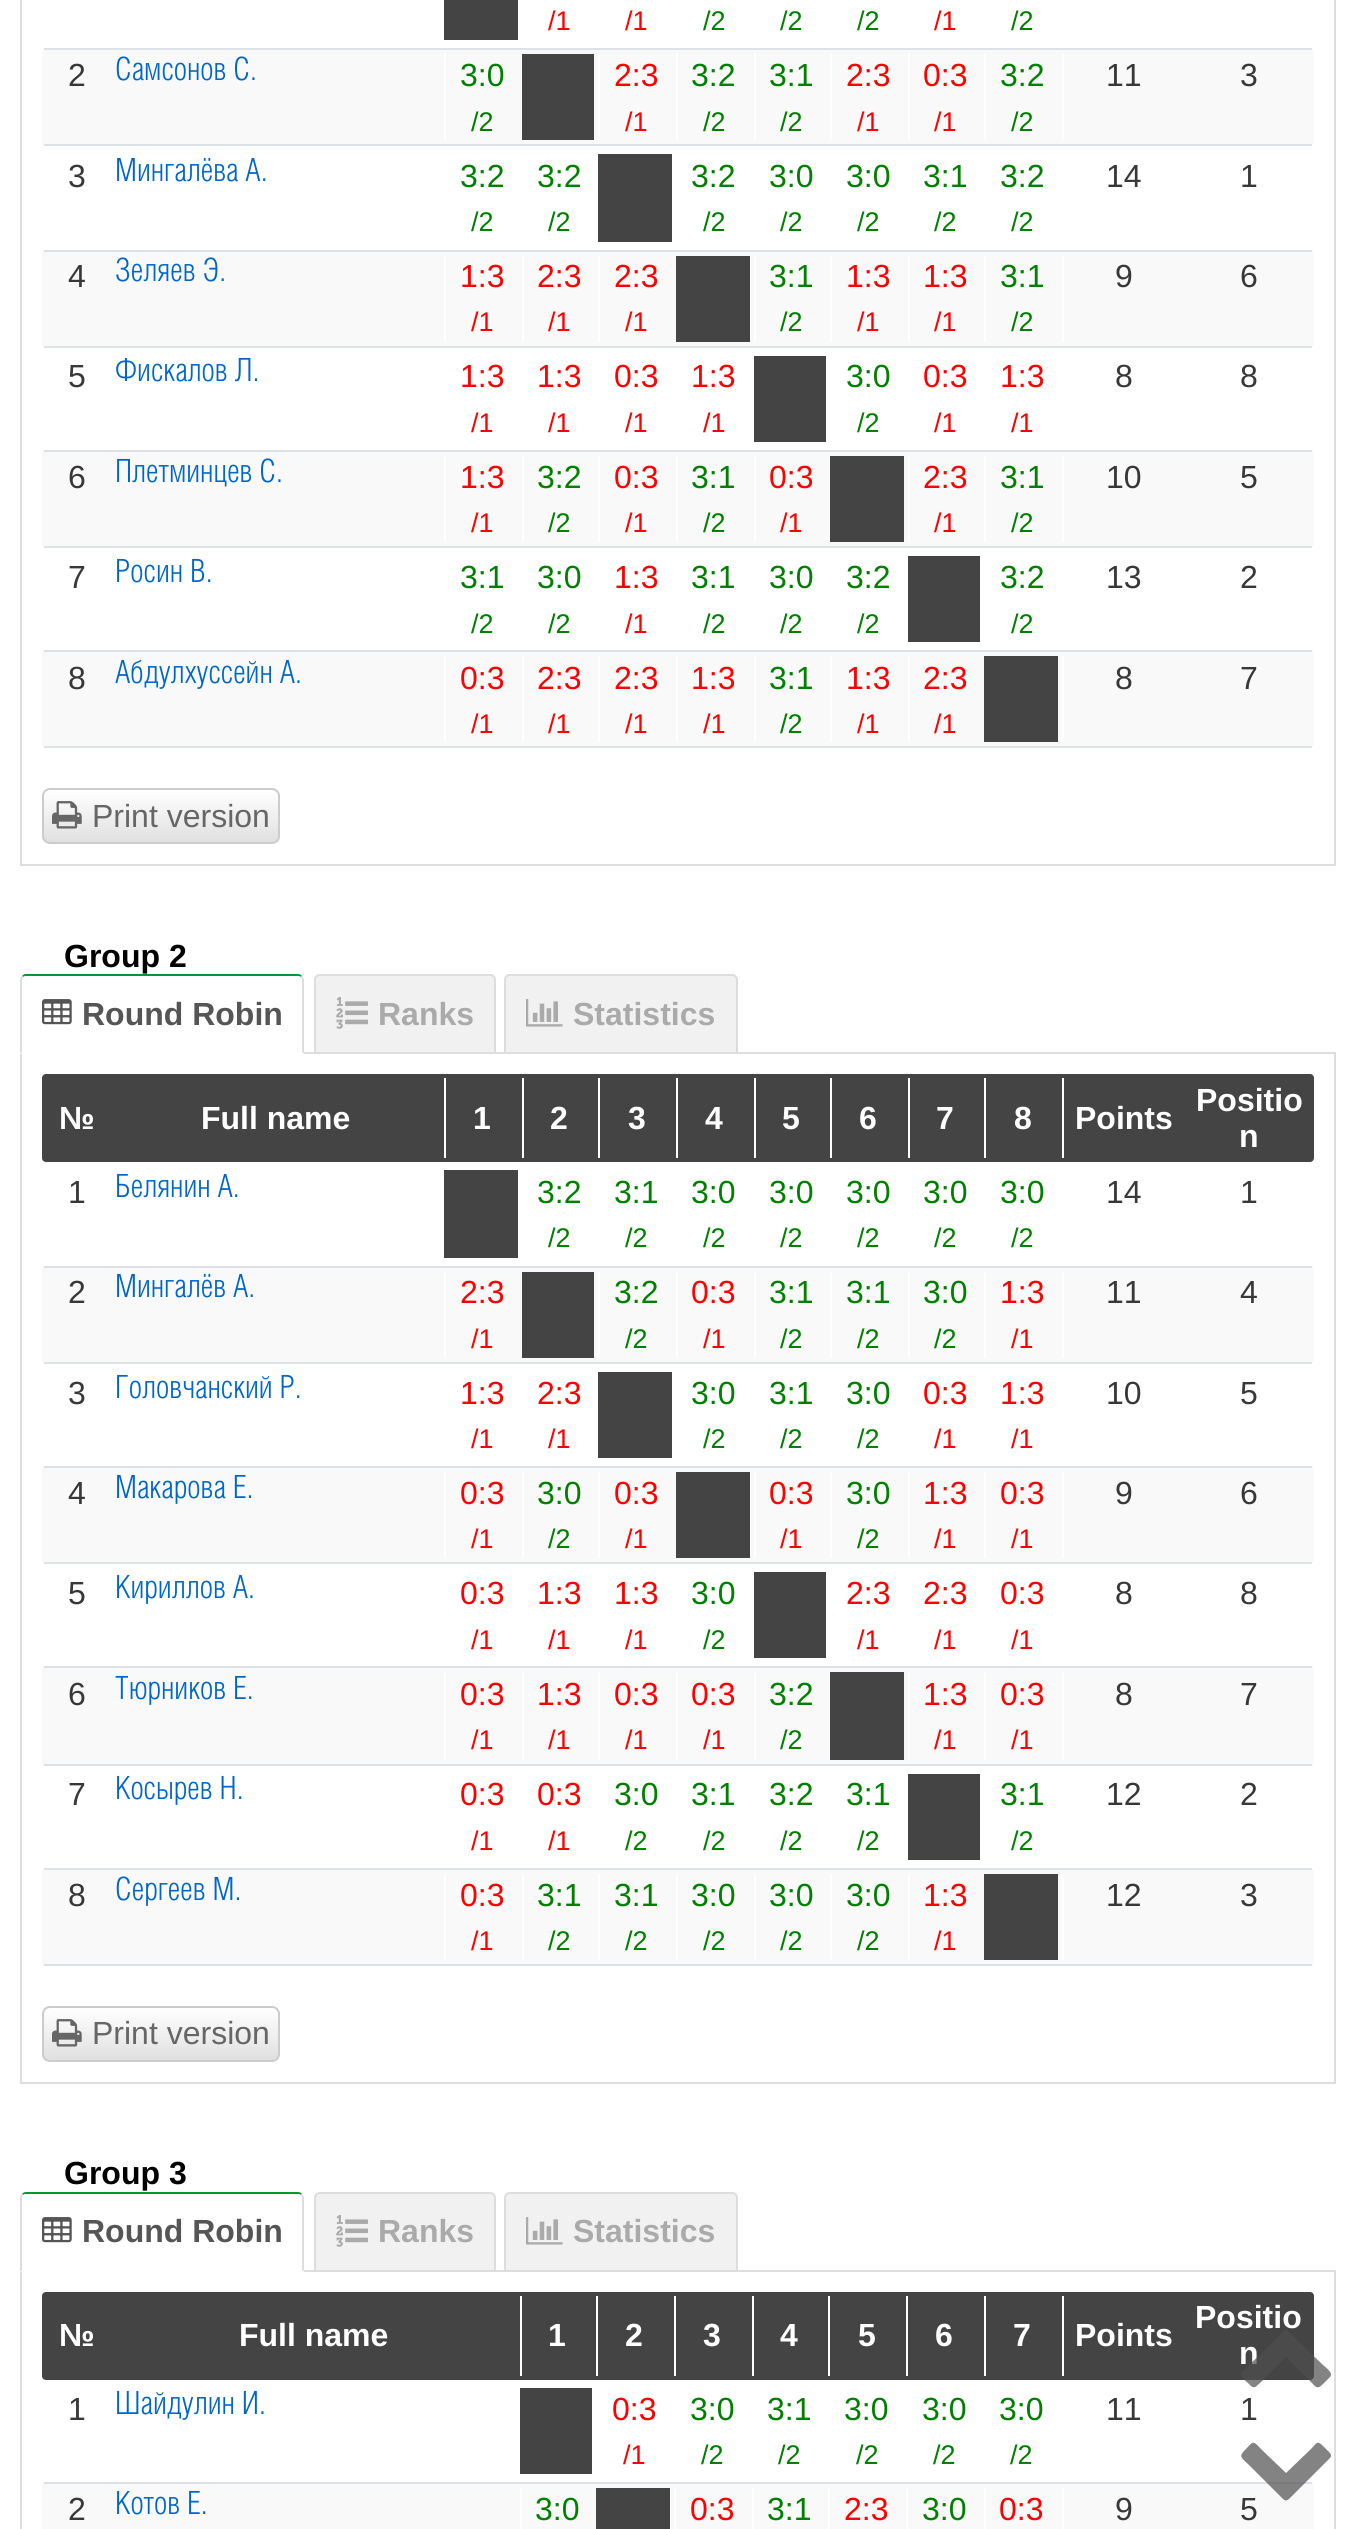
#include <cairo.h>
#include <math.h>
#include <stddef.h>

static cairo_t *c;
static void C(unsigned color){cairo_set_source_rgb(c, (color >> 16) / 255.0, (color >> 8 & 255) / 255.0, (color & 255) / 255.0);}
static void F(const char *family, double size, int italic, int bold){cairo_select_font_face(c, family, italic ? CAIRO_FONT_SLANT_ITALIC : CAIRO_FONT_SLANT_NORMAL,bold ? CAIRO_FONT_WEIGHT_BOLD : CAIRO_FONT_WEIGHT_NORMAL);cairo_set_font_size(c, size);}
static void T(double x, double y, const char *s){cairo_move_to(c, x, y);cairo_show_text(c, s);}
static void R(double x, double y, double w, double h){cairo_rectangle(c, x, y, w, h);cairo_fill(c);}
static void Q(double x, double y, double w, double h, double r){cairo_new_sub_path(c);cairo_arc(c, x + w - r, y + h - r, r, 0, M_PI / 2);cairo_arc(c, x + r, y + h - r, r, M_PI / 2, M_PI);cairo_arc(c, x + r, y + r, r, M_PI, 1.5 * M_PI);cairo_arc(c, x + w - r, y + r, r, 1.5 * M_PI, 2 * M_PI);cairo_close_path(c);}
static void I(const char *path, double x, double y, double w, double h){cairo_surface_t *image = cairo_image_surface_create_from_png(path);cairo_save(c);cairo_set_source_surface(c, image, x, y);cairo_rectangle(c, x, y, w, h);cairo_fill(c);cairo_restore(c);cairo_surface_destroy(image);}
int main(void) {
cairo_surface_t *surface = cairo_image_surface_create(CAIRO_FORMAT_RGB24, 1355, 2529);
c = cairo_create(surface);
cairo_font_options_t *options = cairo_font_options_create();
cairo_font_options_set_hint_metrics(options, CAIRO_HINT_METRICS_OFF);
cairo_font_options_set_hint_style(options, CAIRO_HINT_STYLE_NONE);
cairo_set_font_options(c, options);
cairo_set_miter_limit(c, 4);
cairo_pattern_t *gradient;
C(0xffffff);
cairo_paint(c);
cairo_rectangle(c,21,-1,1314,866);
C(0xdddddd);
cairo_stroke(c);
C(0x444444);
R(444,0,74,40);
F("Liberation Sans",27,0,0);
C(0xff0000);
T(548,30,"/1");
T(625,30,"/1");
C(0x008000);
T(703,30,"/2");
T(780,30,"/2");
T(857,30,"/2");
C(0xff0000);
T(934,30,"/1");
C(0x008000);
T(1011,30,"/2");
C(0xf9f9f9);
Q(42,48,1272,98,4);
cairo_fill(c);
C(0xdee2e6);
R(44,48,1268,2);
R(44,144,1268,2);
F("Liberation Sans",32,0,0);
C(0x383838);
T(68,86,"2");
F("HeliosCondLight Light",32,0,0);
C(0x0066cc);
T(115,80,"Самсонов С.");
C(0xffffff);
R(444,54,2,86);
F("Liberation Sans",32,0,0);
C(0x008000);
T(460,86,"3:0");
F("Liberation Sans",27,0,0);
T(471,131,"/2");
C(0x444444);
R(522,54,72,86);
C(0xffffff);
R(598,54,2,86);
F("Liberation Sans",32,0,0);
C(0xff0000);
T(614,86,"2:3");
F("Liberation Sans",27,0,0);
T(625,131,"/1");
C(0xffffff);
R(676,54,2,86);
F("Liberation Sans",32,0,0);
C(0x008000);
T(691,86,"3:2");
F("Liberation Sans",27,0,0);
T(703,131,"/2");
C(0xffffff);
R(754,54,2,86);
F("Liberation Sans",32,0,0);
C(0x008000);
T(769,86,"3:1");
F("Liberation Sans",27,0,0);
T(780,131,"/2");
C(0xffffff);
R(830,54,2,86);
F("Liberation Sans",32,0,0);
C(0xff0000);
T(846,86,"2:3");
F("Liberation Sans",27,0,0);
T(857,131,"/1");
C(0xffffff);
R(908,54,2,86);
F("Liberation Sans",32,0,0);
C(0xff0000);
T(923,86,"0:3");
F("Liberation Sans",27,0,0);
T(934,131,"/1");
C(0xffffff);
R(984,54,2,86);
F("Liberation Sans",32,0,0);
C(0x008000);
T(1000,86,"3:2");
F("Liberation Sans",27,0,0);
T(1011,131,"/2");
C(0xffffff);
R(1062,54,2,86);
F("Liberation Sans",32,0,0);
C(0x383838);
T(1106,86,"11");
T(1240,86,"3");
T(68,187,"3");
F("HeliosCondLight Light",32,0,0);
C(0x0066cc);
T(115,181,"Мингалёва А.");
F("Liberation Sans",32,0,0);
C(0x008000);
T(460,187,"3:2");
F("Liberation Sans",27,0,0);
T(471,231,"/2");
F("Liberation Sans",32,0,0);
T(537,187,"3:2");
F("Liberation Sans",27,0,0);
T(548,231,"/2");
C(0x444444);
R(598,154,74,88);
F("Liberation Sans",32,0,0);
C(0x008000);
T(691,187,"3:2");
F("Liberation Sans",27,0,0);
T(703,231,"/2");
F("Liberation Sans",32,0,0);
T(769,187,"3:0");
F("Liberation Sans",27,0,0);
T(780,231,"/2");
F("Liberation Sans",32,0,0);
T(846,187,"3:0");
F("Liberation Sans",27,0,0);
T(857,231,"/2");
F("Liberation Sans",32,0,0);
T(923,187,"3:1");
F("Liberation Sans",27,0,0);
T(934,231,"/2");
F("Liberation Sans",32,0,0);
T(1000,187,"3:2");
F("Liberation Sans",27,0,0);
T(1011,231,"/2");
F("Liberation Sans",32,0,0);
C(0x383838);
T(1106,187,"14");
T(1240,187,"1");
C(0xf9f9f9);
Q(42,250,1272,98,4);
cairo_fill(c);
C(0xdee2e6);
R(44,250,1268,2);
R(44,346,1268,2);
C(0x383838);
T(68,287,"4");
F("HeliosCondLight Light",32,0,0);
C(0x0066cc);
T(115,281,"Зеляев Э.");
C(0xffffff);
R(444,256,2,86);
F("Liberation Sans",32,0,0);
C(0xff0000);
T(460,287,"1:3");
F("Liberation Sans",27,0,0);
T(471,331,"/1");
C(0xffffff);
R(522,256,2,86);
F("Liberation Sans",32,0,0);
C(0xff0000);
T(537,287,"2:3");
F("Liberation Sans",27,0,0);
T(548,331,"/1");
C(0xffffff);
R(598,256,2,86);
F("Liberation Sans",32,0,0);
C(0xff0000);
T(614,287,"2:3");
F("Liberation Sans",27,0,0);
T(625,331,"/1");
C(0x444444);
R(676,256,74,86);
C(0xffffff);
R(754,256,2,86);
F("Liberation Sans",32,0,0);
C(0x008000);
T(769,287,"3:1");
F("Liberation Sans",27,0,0);
T(780,331,"/2");
C(0xffffff);
R(830,256,2,86);
F("Liberation Sans",32,0,0);
C(0xff0000);
T(846,287,"1:3");
F("Liberation Sans",27,0,0);
T(857,331,"/1");
C(0xffffff);
R(908,256,2,86);
F("Liberation Sans",32,0,0);
C(0xff0000);
T(923,287,"1:3");
F("Liberation Sans",27,0,0);
T(934,331,"/1");
C(0xffffff);
R(984,256,2,86);
F("Liberation Sans",32,0,0);
C(0x008000);
T(1000,287,"3:1");
F("Liberation Sans",27,0,0);
T(1011,331,"/2");
C(0xffffff);
R(1062,256,2,86);
F("Liberation Sans",32,0,0);
C(0x383838);
T(1115,287,"9");
T(1240,287,"6");
T(68,387,"5");
F("HeliosCondLight Light",32,0,0);
C(0x0066cc);
T(115,381,"Фискалов Л.");
F("Liberation Sans",32,0,0);
C(0xff0000);
T(460,387,"1:3");
F("Liberation Sans",27,0,0);
T(471,432,"/1");
F("Liberation Sans",32,0,0);
T(537,387,"1:3");
F("Liberation Sans",27,0,0);
T(548,432,"/1");
F("Liberation Sans",32,0,0);
T(614,387,"0:3");
F("Liberation Sans",27,0,0);
T(625,432,"/1");
F("Liberation Sans",32,0,0);
T(691,387,"1:3");
F("Liberation Sans",27,0,0);
T(703,432,"/1");
C(0x444444);
R(754,356,72,86);
F("Liberation Sans",32,0,0);
C(0x008000);
T(846,387,"3:0");
F("Liberation Sans",27,0,0);
T(857,432,"/2");
F("Liberation Sans",32,0,0);
C(0xff0000);
T(923,387,"0:3");
F("Liberation Sans",27,0,0);
T(934,432,"/1");
F("Liberation Sans",32,0,0);
T(1000,387,"1:3");
F("Liberation Sans",27,0,0);
T(1011,432,"/1");
F("Liberation Sans",32,0,0);
C(0x383838);
T(1115,387,"8");
T(1240,387,"8");
C(0xf9f9f9);
Q(42,450,1272,98,4);
cairo_fill(c);
C(0xdee2e6);
R(44,450,1268,2);
R(44,546,1268,2);
C(0x383838);
T(68,488,"6");
F("HeliosCondLight Light",32,0,0);
C(0x0066cc);
T(115,482,"Плетминцев С.");
C(0xffffff);
R(444,456,2,86);
F("Liberation Sans",32,0,0);
C(0xff0000);
T(460,488,"1:3");
F("Liberation Sans",27,0,0);
T(471,532,"/1");
C(0xffffff);
R(522,456,2,86);
F("Liberation Sans",32,0,0);
C(0x008000);
T(537,488,"3:2");
F("Liberation Sans",27,0,0);
T(548,532,"/2");
C(0xffffff);
R(598,456,2,86);
F("Liberation Sans",32,0,0);
C(0xff0000);
T(614,488,"0:3");
F("Liberation Sans",27,0,0);
T(625,532,"/1");
C(0xffffff);
R(676,456,2,86);
F("Liberation Sans",32,0,0);
C(0x008000);
T(691,488,"3:1");
F("Liberation Sans",27,0,0);
T(703,532,"/2");
C(0xffffff);
R(754,456,2,86);
F("Liberation Sans",32,0,0);
C(0xff0000);
T(769,488,"0:3");
F("Liberation Sans",27,0,0);
T(780,532,"/1");
C(0x444444);
R(830,456,74,86);
C(0xffffff);
R(908,456,2,86);
F("Liberation Sans",32,0,0);
C(0xff0000);
T(923,488,"2:3");
F("Liberation Sans",27,0,0);
T(934,532,"/1");
C(0xffffff);
R(984,456,2,86);
F("Liberation Sans",32,0,0);
C(0x008000);
T(1000,488,"3:1");
F("Liberation Sans",27,0,0);
T(1011,532,"/2");
C(0xffffff);
R(1062,456,2,86);
F("Liberation Sans",32,0,0);
C(0x383838);
T(1106,488,"10");
T(1240,488,"5");
T(68,588,"7");
F("HeliosCondLight Light",32,0,0);
C(0x0066cc);
T(115,582,"Росин В.");
F("Liberation Sans",32,0,0);
C(0x008000);
T(460,588,"3:1");
F("Liberation Sans",27,0,0);
T(471,633,"/2");
F("Liberation Sans",32,0,0);
T(537,588,"3:0");
F("Liberation Sans",27,0,0);
T(548,633,"/2");
F("Liberation Sans",32,0,0);
C(0xff0000);
T(614,588,"1:3");
F("Liberation Sans",27,0,0);
T(625,633,"/1");
F("Liberation Sans",32,0,0);
C(0x008000);
T(691,588,"3:1");
F("Liberation Sans",27,0,0);
T(703,633,"/2");
F("Liberation Sans",32,0,0);
T(769,588,"3:0");
F("Liberation Sans",27,0,0);
T(780,633,"/2");
F("Liberation Sans",32,0,0);
T(846,588,"3:2");
F("Liberation Sans",27,0,0);
T(857,633,"/2");
C(0x444444);
R(908,556,72,86);
F("Liberation Sans",32,0,0);
C(0x008000);
T(1000,588,"3:2");
F("Liberation Sans",27,0,0);
T(1011,633,"/2");
F("Liberation Sans",32,0,0);
C(0x383838);
T(1106,588,"13");
T(1240,588,"2");
C(0xf9f9f9);
Q(42,650,1272,98,4);
cairo_fill(c);
C(0xdee2e6);
R(44,650,1268,2);
R(44,746,1268,2);
C(0x383838);
T(68,689,"8");
F("HeliosCondLight Light",32,0,0);
C(0x0066cc);
T(115,683,"Абдулхуссейн А.");
C(0xffffff);
R(444,656,2,86);
F("Liberation Sans",32,0,0);
C(0xff0000);
T(460,689,"0:3");
F("Liberation Sans",27,0,0);
T(471,733,"/1");
C(0xffffff);
R(522,656,2,86);
F("Liberation Sans",32,0,0);
C(0xff0000);
T(537,689,"2:3");
F("Liberation Sans",27,0,0);
T(548,733,"/1");
C(0xffffff);
R(598,656,2,86);
F("Liberation Sans",32,0,0);
C(0xff0000);
T(614,689,"2:3");
F("Liberation Sans",27,0,0);
T(625,733,"/1");
C(0xffffff);
R(676,656,2,86);
F("Liberation Sans",32,0,0);
C(0xff0000);
T(691,689,"1:3");
F("Liberation Sans",27,0,0);
T(703,733,"/1");
C(0xffffff);
R(754,656,2,86);
F("Liberation Sans",32,0,0);
C(0x008000);
T(769,689,"3:1");
F("Liberation Sans",27,0,0);
T(780,733,"/2");
C(0xffffff);
R(830,656,2,86);
F("Liberation Sans",32,0,0);
C(0xff0000);
T(846,689,"1:3");
F("Liberation Sans",27,0,0);
T(857,733,"/1");
C(0xffffff);
R(908,656,2,86);
F("Liberation Sans",32,0,0);
C(0xff0000);
T(923,689,"2:3");
F("Liberation Sans",27,0,0);
T(934,733,"/1");
C(0x444444);
R(984,656,74,86);
C(0xffffff);
R(1062,656,2,86);
F("Liberation Sans",32,0,0);
C(0x383838);
T(1115,689,"8");
T(1240,689,"7");
cairo_save(c);
Q(42,788,238,56,8);
cairo_clip(c);
gradient = cairo_pattern_create_linear(44,790,44,842);
cairo_pattern_add_color_stop_rgba(gradient,0,1,1,1,1);
cairo_pattern_add_color_stop_rgba(gradient,1,0.878,0.878,0.878,1);
cairo_set_source(c,gradient);
cairo_pattern_destroy(gradient);
R(42,790,238,52);
cairo_restore(c);
Q(43,789,236,54,7);
C(0xcccccc);
cairo_stroke(c);
I("1.png",52,801,30,28);
C(0x666666);
T(92,827,"Print version");
F("Liberation Sans",32,0,1);
C(0x000000);
T(64,967,"Group 2");
cairo_rectangle(c,21,1053,1314,1030);
C(0xdddddd);
cairo_stroke(c);
C(0xffffff);
cairo_new_path(c);
cairo_move_to(c,26,974);
cairo_line_to(c,298,974);
cairo_curve_to(c,301.5,974,304,976.5,304,980);
cairo_line_to(c,304,1054);
cairo_line_to(c,20,1054);
cairo_line_to(c,20,980);
cairo_curve_to(c,20,976.5,22.5,974,26,974);
cairo_close_path(c);
cairo_fill(c);
C(0x009933);
cairo_new_path(c);
cairo_move_to(c,26,974);
cairo_curve_to(c,24,974,23,975,22,976);
cairo_line_to(c,23,977);
cairo_curve_to(c,24,976,25,976,26,976);
cairo_line_to(c,298,976);
cairo_curve_to(c,299,976,300,976,301,977);
cairo_line_to(c,302,976);
cairo_curve_to(c,301,975,300,974,298,974);
cairo_close_path(c);
cairo_fill(c);
C(0xdddddd);
cairo_new_path(c);
cairo_move_to(c,304,1054);
cairo_line_to(c,304,979);
cairo_line_to(c,302,976);
cairo_line_to(c,301,977);
cairo_line_to(c,302,980);
cairo_line_to(c,302,1052);
cairo_close_path(c);
cairo_fill(c);
C(0xffffff);
cairo_new_path(c);
cairo_move_to(c,304,1054);
cairo_line_to(c,302,1052);
cairo_line_to(c,22,1052);
cairo_line_to(c,20,1054);
cairo_close_path(c);
cairo_fill(c);
C(0xdddddd);
cairo_new_path(c);
cairo_move_to(c,20,1054);
cairo_line_to(c,22,1052);
cairo_line_to(c,22,980);
cairo_line_to(c,23,977);
cairo_line_to(c,22,976);
cairo_curve_to(c,21,977,20,978,20,980);
cairo_close_path(c);
cairo_fill(c);
I("2.png",42,999,30,26);
C(0x555555);
T(82,1025,"Round Robin");
C(0xf1f1f1);
cairo_new_path(c);
cairo_move_to(c,320,975);
cairo_line_to(c,490,975);
cairo_curve_to(c,493,975,495,977,495,980);
cairo_line_to(c,495,1053);
cairo_line_to(c,315,1053);
cairo_line_to(c,315,980);
cairo_curve_to(c,315,977,317,975,320,975);
cairo_close_path(c);
cairo_fill_preserve(c);
C(0xdddddd);
cairo_stroke(c);
I("3.png",336,996,32,33);
C(0xaaaaaa);
T(378,1025,"Ranks");
C(0xf1f1f1);
cairo_new_path(c);
cairo_move_to(c,510,975);
cairo_line_to(c,732,975);
cairo_curve_to(c,735,975,737,977,737,980);
cairo_line_to(c,737,1053);
cairo_line_to(c,505,1053);
cairo_line_to(c,505,980);
cairo_curve_to(c,505,977,507,975,510,975);
cairo_close_path(c);
cairo_fill_preserve(c);
C(0xdddddd);
cairo_stroke(c);
I("4.png",526,999,37,28);
C(0xaaaaaa);
T(573,1025,"Statistics");
C(0x444444);
Q(42,1074,1272,88,4);
cairo_fill(c);
C(0xffffff);
T(59,1129,"№");
T(201,1129,"Full name");
R(444,1078,2,80);
T(473,1129,"1");
R(522,1078,2,80);
T(550,1129,"2");
R(598,1078,2,80);
T(628,1129,"3");
R(676,1078,2,80);
T(705,1129,"4");
R(754,1078,2,80);
T(782,1129,"5");
R(830,1078,2,80);
T(859,1129,"6");
R(908,1078,2,80);
T(936,1129,"7");
R(984,1078,2,80);
T(1014,1129,"8");
R(1062,1078,2,80);
T(1075,1129,"Points");
T(1196,1111,"Positio");
T(1239,1147,"n");
F("Liberation Sans",32,0,0);
C(0x383838);
T(68,1203,"1");
F("HeliosCondLight Light",32,0,0);
C(0x0066cc);
T(115,1197,"Белянин А.");
C(0x444444);
R(444,1170,74,88);
F("Liberation Sans",32,0,0);
C(0x008000);
T(537,1203,"3:2");
F("Liberation Sans",27,0,0);
T(548,1247,"/2");
F("Liberation Sans",32,0,0);
T(614,1203,"3:1");
F("Liberation Sans",27,0,0);
T(625,1247,"/2");
F("Liberation Sans",32,0,0);
T(691,1203,"3:0");
F("Liberation Sans",27,0,0);
T(703,1247,"/2");
F("Liberation Sans",32,0,0);
T(769,1203,"3:0");
F("Liberation Sans",27,0,0);
T(780,1247,"/2");
F("Liberation Sans",32,0,0);
T(846,1203,"3:0");
F("Liberation Sans",27,0,0);
T(857,1247,"/2");
F("Liberation Sans",32,0,0);
T(923,1203,"3:0");
F("Liberation Sans",27,0,0);
T(934,1247,"/2");
F("Liberation Sans",32,0,0);
T(1000,1203,"3:0");
F("Liberation Sans",27,0,0);
T(1011,1247,"/2");
F("Liberation Sans",32,0,0);
C(0x383838);
T(1106,1203,"14");
T(1240,1203,"1");
C(0xf9f9f9);
Q(42,1266,1272,98,4);
cairo_fill(c);
C(0xdee2e6);
R(44,1266,1268,2);
R(44,1362,1268,2);
C(0x383838);
T(68,1303,"2");
F("HeliosCondLight Light",32,0,0);
C(0x0066cc);
T(115,1297,"Мингалёв А.");
C(0xffffff);
R(444,1272,2,86);
F("Liberation Sans",32,0,0);
C(0xff0000);
T(460,1303,"2:3");
F("Liberation Sans",27,0,0);
T(471,1348,"/1");
C(0x444444);
R(522,1272,72,86);
C(0xffffff);
R(598,1272,2,86);
F("Liberation Sans",32,0,0);
C(0x008000);
T(614,1303,"3:2");
F("Liberation Sans",27,0,0);
T(625,1348,"/2");
C(0xffffff);
R(676,1272,2,86);
F("Liberation Sans",32,0,0);
C(0xff0000);
T(691,1303,"0:3");
F("Liberation Sans",27,0,0);
T(703,1348,"/1");
C(0xffffff);
R(754,1272,2,86);
F("Liberation Sans",32,0,0);
C(0x008000);
T(769,1303,"3:1");
F("Liberation Sans",27,0,0);
T(780,1348,"/2");
C(0xffffff);
R(830,1272,2,86);
F("Liberation Sans",32,0,0);
C(0x008000);
T(846,1303,"3:1");
F("Liberation Sans",27,0,0);
T(857,1348,"/2");
C(0xffffff);
R(908,1272,2,86);
F("Liberation Sans",32,0,0);
C(0x008000);
T(923,1303,"3:0");
F("Liberation Sans",27,0,0);
T(934,1348,"/2");
C(0xffffff);
R(984,1272,2,86);
F("Liberation Sans",32,0,0);
C(0xff0000);
T(1000,1303,"1:3");
F("Liberation Sans",27,0,0);
T(1011,1348,"/1");
C(0xffffff);
R(1062,1272,2,86);
F("Liberation Sans",32,0,0);
C(0x383838);
T(1106,1303,"11");
T(1240,1303,"4");
T(68,1404,"3");
F("HeliosCondLight Light",32,0,0);
C(0x0066cc);
T(115,1398,"Головчанский Р.");
F("Liberation Sans",32,0,0);
C(0xff0000);
T(460,1404,"1:3");
F("Liberation Sans",27,0,0);
T(471,1448,"/1");
F("Liberation Sans",32,0,0);
T(537,1404,"2:3");
F("Liberation Sans",27,0,0);
T(548,1448,"/1");
C(0x444444);
R(598,1372,74,86);
F("Liberation Sans",32,0,0);
C(0x008000);
T(691,1404,"3:0");
F("Liberation Sans",27,0,0);
T(703,1448,"/2");
F("Liberation Sans",32,0,0);
T(769,1404,"3:1");
F("Liberation Sans",27,0,0);
T(780,1448,"/2");
F("Liberation Sans",32,0,0);
T(846,1404,"3:0");
F("Liberation Sans",27,0,0);
T(857,1448,"/2");
F("Liberation Sans",32,0,0);
C(0xff0000);
T(923,1404,"0:3");
F("Liberation Sans",27,0,0);
T(934,1448,"/1");
F("Liberation Sans",32,0,0);
T(1000,1404,"1:3");
F("Liberation Sans",27,0,0);
T(1011,1448,"/1");
F("Liberation Sans",32,0,0);
C(0x383838);
T(1106,1404,"10");
T(1240,1404,"5");
C(0xf9f9f9);
Q(42,1466,1272,98,4);
cairo_fill(c);
C(0xdee2e6);
R(44,1466,1268,2);
R(44,1562,1268,2);
C(0x383838);
T(68,1504,"4");
F("HeliosCondLight Light",32,0,0);
C(0x0066cc);
T(115,1498,"Макарова Е.");
C(0xffffff);
R(444,1472,2,86);
F("Liberation Sans",32,0,0);
C(0xff0000);
T(460,1504,"0:3");
F("Liberation Sans",27,0,0);
T(471,1548,"/1");
C(0xffffff);
R(522,1472,2,86);
F("Liberation Sans",32,0,0);
C(0x008000);
T(537,1504,"3:0");
F("Liberation Sans",27,0,0);
T(548,1548,"/2");
C(0xffffff);
R(598,1472,2,86);
F("Liberation Sans",32,0,0);
C(0xff0000);
T(614,1504,"0:3");
F("Liberation Sans",27,0,0);
T(625,1548,"/1");
C(0x444444);
R(676,1472,74,86);
C(0xffffff);
R(754,1472,2,86);
F("Liberation Sans",32,0,0);
C(0xff0000);
T(769,1504,"0:3");
F("Liberation Sans",27,0,0);
T(780,1548,"/1");
C(0xffffff);
R(830,1472,2,86);
F("Liberation Sans",32,0,0);
C(0x008000);
T(846,1504,"3:0");
F("Liberation Sans",27,0,0);
T(857,1548,"/2");
C(0xffffff);
R(908,1472,2,86);
F("Liberation Sans",32,0,0);
C(0xff0000);
T(923,1504,"1:3");
F("Liberation Sans",27,0,0);
T(934,1548,"/1");
C(0xffffff);
R(984,1472,2,86);
F("Liberation Sans",32,0,0);
C(0xff0000);
T(1000,1504,"0:3");
F("Liberation Sans",27,0,0);
T(1011,1548,"/1");
C(0xffffff);
R(1062,1472,2,86);
F("Liberation Sans",32,0,0);
C(0x383838);
T(1115,1504,"9");
T(1240,1504,"6");
T(68,1604,"5");
F("HeliosCondLight Light",32,0,0);
C(0x0066cc);
T(115,1598,"Кириллов А.");
F("Liberation Sans",32,0,0);
C(0xff0000);
T(460,1604,"0:3");
F("Liberation Sans",27,0,0);
T(471,1649,"/1");
F("Liberation Sans",32,0,0);
T(537,1604,"1:3");
F("Liberation Sans",27,0,0);
T(548,1649,"/1");
F("Liberation Sans",32,0,0);
T(614,1604,"1:3");
F("Liberation Sans",27,0,0);
T(625,1649,"/1");
F("Liberation Sans",32,0,0);
C(0x008000);
T(691,1604,"3:0");
F("Liberation Sans",27,0,0);
T(703,1649,"/2");
C(0x444444);
R(754,1572,72,86);
F("Liberation Sans",32,0,0);
C(0xff0000);
T(846,1604,"2:3");
F("Liberation Sans",27,0,0);
T(857,1649,"/1");
F("Liberation Sans",32,0,0);
T(923,1604,"2:3");
F("Liberation Sans",27,0,0);
T(934,1649,"/1");
F("Liberation Sans",32,0,0);
T(1000,1604,"0:3");
F("Liberation Sans",27,0,0);
T(1011,1649,"/1");
F("Liberation Sans",32,0,0);
C(0x383838);
T(1115,1604,"8");
T(1240,1604,"8");
C(0xf9f9f9);
Q(42,1666,1272,100,4);
cairo_fill(c);
C(0xdee2e6);
R(44,1666,1268,2);
R(44,1764,1268,2);
C(0x383838);
T(68,1705,"6");
F("HeliosCondLight Light",32,0,0);
C(0x0066cc);
T(115,1699,"Тюрников Е.");
C(0xffffff);
R(444,1672,2,88);
F("Liberation Sans",32,0,0);
C(0xff0000);
T(460,1705,"0:3");
F("Liberation Sans",27,0,0);
T(471,1749,"/1");
C(0xffffff);
R(522,1672,2,88);
F("Liberation Sans",32,0,0);
C(0xff0000);
T(537,1705,"1:3");
F("Liberation Sans",27,0,0);
T(548,1749,"/1");
C(0xffffff);
R(598,1672,2,88);
F("Liberation Sans",32,0,0);
C(0xff0000);
T(614,1705,"0:3");
F("Liberation Sans",27,0,0);
T(625,1749,"/1");
C(0xffffff);
R(676,1672,2,88);
F("Liberation Sans",32,0,0);
C(0xff0000);
T(691,1705,"0:3");
F("Liberation Sans",27,0,0);
T(703,1749,"/1");
C(0xffffff);
R(754,1672,2,88);
F("Liberation Sans",32,0,0);
C(0x008000);
T(769,1705,"3:2");
F("Liberation Sans",27,0,0);
T(780,1749,"/2");
C(0x444444);
R(830,1672,74,88);
C(0xffffff);
R(908,1672,2,88);
F("Liberation Sans",32,0,0);
C(0xff0000);
T(923,1705,"1:3");
F("Liberation Sans",27,0,0);
T(934,1749,"/1");
C(0xffffff);
R(984,1672,2,88);
F("Liberation Sans",32,0,0);
C(0xff0000);
T(1000,1705,"0:3");
F("Liberation Sans",27,0,0);
T(1011,1749,"/1");
C(0xffffff);
R(1062,1672,2,88);
F("Liberation Sans",32,0,0);
C(0x383838);
T(1115,1705,"8");
T(1240,1705,"7");
T(68,1805,"7");
F("HeliosCondLight Light",32,0,0);
C(0x0066cc);
T(115,1799,"Косырев Н.");
F("Liberation Sans",32,0,0);
C(0xff0000);
T(460,1805,"0:3");
F("Liberation Sans",27,0,0);
T(471,1850,"/1");
F("Liberation Sans",32,0,0);
T(537,1805,"0:3");
F("Liberation Sans",27,0,0);
T(548,1850,"/1");
F("Liberation Sans",32,0,0);
C(0x008000);
T(614,1805,"3:0");
F("Liberation Sans",27,0,0);
T(625,1850,"/2");
F("Liberation Sans",32,0,0);
T(691,1805,"3:1");
F("Liberation Sans",27,0,0);
T(703,1850,"/2");
F("Liberation Sans",32,0,0);
T(769,1805,"3:2");
F("Liberation Sans",27,0,0);
T(780,1850,"/2");
F("Liberation Sans",32,0,0);
T(846,1805,"3:1");
F("Liberation Sans",27,0,0);
T(857,1850,"/2");
C(0x444444);
R(908,1774,72,86);
F("Liberation Sans",32,0,0);
C(0x008000);
T(1000,1805,"3:1");
F("Liberation Sans",27,0,0);
T(1011,1850,"/2");
F("Liberation Sans",32,0,0);
C(0x383838);
T(1106,1805,"12");
T(1240,1805,"2");
C(0xf9f9f9);
Q(42,1868,1272,98,4);
cairo_fill(c);
C(0xdee2e6);
R(44,1868,1268,2);
R(44,1964,1268,2);
C(0x383838);
T(68,1906,"8");
F("HeliosCondLight Light",32,0,0);
C(0x0066cc);
T(115,1900,"Сергеев М.");
C(0xffffff);
R(444,1874,2,86);
F("Liberation Sans",32,0,0);
C(0xff0000);
T(460,1906,"0:3");
F("Liberation Sans",27,0,0);
T(471,1950,"/1");
C(0xffffff);
R(522,1874,2,86);
F("Liberation Sans",32,0,0);
C(0x008000);
T(537,1906,"3:1");
F("Liberation Sans",27,0,0);
T(548,1950,"/2");
C(0xffffff);
R(598,1874,2,86);
F("Liberation Sans",32,0,0);
C(0x008000);
T(614,1906,"3:1");
F("Liberation Sans",27,0,0);
T(625,1950,"/2");
C(0xffffff);
R(676,1874,2,86);
F("Liberation Sans",32,0,0);
C(0x008000);
T(691,1906,"3:0");
F("Liberation Sans",27,0,0);
T(703,1950,"/2");
C(0xffffff);
R(754,1874,2,86);
F("Liberation Sans",32,0,0);
C(0x008000);
T(769,1906,"3:0");
F("Liberation Sans",27,0,0);
T(780,1950,"/2");
C(0xffffff);
R(830,1874,2,86);
F("Liberation Sans",32,0,0);
C(0x008000);
T(846,1906,"3:0");
F("Liberation Sans",27,0,0);
T(857,1950,"/2");
C(0xffffff);
R(908,1874,2,86);
F("Liberation Sans",32,0,0);
C(0xff0000);
T(923,1906,"1:3");
F("Liberation Sans",27,0,0);
T(934,1950,"/1");
C(0x444444);
R(984,1874,74,86);
C(0xffffff);
R(1062,1874,2,86);
F("Liberation Sans",32,0,0);
C(0x383838);
T(1106,1906,"12");
T(1240,1906,"3");
cairo_save(c);
Q(42,2006,238,56,8);
cairo_clip(c);
gradient = cairo_pattern_create_linear(44,2008,44,2060);
cairo_pattern_add_color_stop_rgba(gradient,0,1,1,1,1);
cairo_pattern_add_color_stop_rgba(gradient,1,0.878,0.878,0.878,1);
cairo_set_source(c,gradient);
cairo_pattern_destroy(gradient);
R(42,2008,238,52);
cairo_restore(c);
Q(43,2007,236,54,7);
C(0xcccccc);
cairo_stroke(c);
I("1.png",52,2019,30,28);
C(0x666666);
T(92,2044,"Print version");
F("Liberation Sans",32,0,1);
C(0x000000);
T(64,2184,"Group 3");
cairo_rectangle(c,21,2271,1314,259);
C(0xdddddd);
cairo_stroke(c);
C(0xffffff);
cairo_new_path(c);
cairo_move_to(c,26,2192);
cairo_line_to(c,298,2192);
cairo_curve_to(c,301.5,2192,304,2194.5,304,2198);
cairo_line_to(c,304,2272);
cairo_line_to(c,20,2272);
cairo_line_to(c,20,2198);
cairo_curve_to(c,20,2194.5,22.5,2192,26,2192);
cairo_close_path(c);
cairo_fill(c);
C(0x009933);
cairo_new_path(c);
cairo_move_to(c,26,2192);
cairo_curve_to(c,24,2192,23,2193,22,2194);
cairo_line_to(c,23,2195);
cairo_curve_to(c,24,2194,25,2194,26,2194);
cairo_line_to(c,298,2194);
cairo_curve_to(c,299,2194,300,2194,301,2195);
cairo_line_to(c,302,2194);
cairo_curve_to(c,301,2193,300,2192,298,2192);
cairo_close_path(c);
cairo_fill(c);
C(0xdddddd);
cairo_new_path(c);
cairo_move_to(c,304,2272);
cairo_line_to(c,304,2197);
cairo_line_to(c,302,2194);
cairo_line_to(c,301,2195);
cairo_line_to(c,302,2198);
cairo_line_to(c,302,2270);
cairo_close_path(c);
cairo_fill(c);
C(0xffffff);
cairo_new_path(c);
cairo_move_to(c,304,2272);
cairo_line_to(c,302,2270);
cairo_line_to(c,22,2270);
cairo_line_to(c,20,2272);
cairo_close_path(c);
cairo_fill(c);
C(0xdddddd);
cairo_new_path(c);
cairo_move_to(c,20,2272);
cairo_line_to(c,22,2270);
cairo_line_to(c,22,2198);
cairo_line_to(c,23,2195);
cairo_line_to(c,22,2194);
cairo_curve_to(c,21,2195,20,2196,20,2198);
cairo_close_path(c);
cairo_fill(c);
I("2.png",42,2217,30,26);
C(0x555555);
T(82,2242,"Round Robin");
C(0xf1f1f1);
cairo_new_path(c);
cairo_move_to(c,320,2193);
cairo_line_to(c,490,2193);
cairo_curve_to(c,493,2193,495,2195,495,2198);
cairo_line_to(c,495,2271);
cairo_line_to(c,315,2271);
cairo_line_to(c,315,2198);
cairo_curve_to(c,315,2195,317,2193,320,2193);
cairo_close_path(c);
cairo_fill_preserve(c);
C(0xdddddd);
cairo_stroke(c);
I("3.png",336,2214,32,33);
C(0xaaaaaa);
T(378,2242,"Ranks");
C(0xf1f1f1);
cairo_new_path(c);
cairo_move_to(c,510,2193);
cairo_line_to(c,732,2193);
cairo_curve_to(c,735,2193,737,2195,737,2198);
cairo_line_to(c,737,2271);
cairo_line_to(c,505,2271);
cairo_line_to(c,505,2198);
cairo_curve_to(c,505,2195,507,2193,510,2193);
cairo_close_path(c);
cairo_fill_preserve(c);
C(0xdddddd);
cairo_stroke(c);
I("4.png",526,2217,37,28);
C(0xaaaaaa);
T(573,2242,"Statistics");
C(0x444444);
Q(42,2292,1272,88,4);
cairo_fill(c);
C(0xffffff);
T(59,2346,"№");
T(239,2346,"Full name");
R(520,2296,2,80);
T(548,2346,"1");
R(596,2296,2,80);
T(625,2346,"2");
R(674,2296,2,80);
T(703,2346,"3");
R(752,2296,2,80);
T(780,2346,"4");
R(828,2296,2,80);
T(858,2346,"5");
R(906,2296,2,80);
T(935,2346,"6");
R(984,2296,2,80);
T(1013,2346,"7");
R(1062,2296,2,80);
T(1075,2346,"Points");
T(1195,2328,"Positio");
T(1239,2364,"n");
F("Liberation Sans",32,0,0);
C(0x383838);
T(68,2420,"1");
F("HeliosCondLight Light",32,0,0);
C(0x0066cc);
T(115,2414,"Шайдулин И.");
C(0x444444);
R(520,2388,72,86);
F("Liberation Sans",32,0,0);
C(0xff0000);
T(612,2420,"0:3");
F("Liberation Sans",27,0,0);
T(623,2464,"/1");
F("Liberation Sans",32,0,0);
C(0x008000);
T(690,2420,"3:0");
F("Liberation Sans",27,0,0);
T(701,2464,"/2");
F("Liberation Sans",32,0,0);
T(767,2420,"3:1");
F("Liberation Sans",27,0,0);
T(778,2464,"/2");
F("Liberation Sans",32,0,0);
T(844,2420,"3:0");
F("Liberation Sans",27,0,0);
T(856,2464,"/2");
F("Liberation Sans",32,0,0);
T(922,2420,"3:0");
F("Liberation Sans",27,0,0);
T(933,2464,"/2");
F("Liberation Sans",32,0,0);
T(999,2420,"3:0");
F("Liberation Sans",27,0,0);
T(1010,2464,"/2");
F("Liberation Sans",32,0,0);
C(0x383838);
T(1106,2420,"11");
T(1240,2420,"1");
C(0xf9f9f9);
Q(42,2482,1272,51,4);
cairo_fill(c);
C(0xdee2e6);
R(44,2482,1268,2);
C(0x383838);
T(68,2520,"2");
F("HeliosCondLight Light",32,0,0);
C(0x0066cc);
T(115,2514,"Котов Е.");
C(0xffffff);
R(520,2488,2,41);
F("Liberation Sans",32,0,0);
C(0x008000);
T(535,2520,"3:0");
C(0x444444);
R(596,2488,74,41);
C(0xffffff);
R(674,2488,2,41);
C(0xff0000);
T(690,2520,"0:3");
C(0xffffff);
R(752,2488,2,41);
C(0x008000);
T(767,2520,"3:1");
C(0xffffff);
R(828,2488,2,41);
C(0xff0000);
T(844,2520,"2:3");
C(0xffffff);
R(906,2488,2,41);
C(0x008000);
T(922,2520,"3:0");
C(0xffffff);
R(984,2488,2,41);
C(0xff0000);
T(999,2520,"0:3");
C(0xffffff);
R(1062,2488,2,41);
C(0x383838);
T(1115,2520,"9");
T(1240,2520,"5");
cairo_set_source_rgba(c,0.31,0.31,0.31,0.7);
cairo_new_path(c);
cairo_move_to(c,1330,2377);
cairo_line_to(c,1322,2385);
cairo_curve_to(c,1317,2390,1315,2386,1311,2382);
cairo_line_to(c,1286,2357);
cairo_curve_to(c,1282,2361,1257,2387,1255,2387);
cairo_curve_to(c,1252,2388,1250,2385,1248,2383);
cairo_curve_to(c,1246,2381,1238,2376,1242,2372);
cairo_line_to(c,1277,2338);
cairo_curve_to(c,1287,2327,1285,2327,1295,2338);
cairo_line_to(c,1323,2365);
cairo_curve_to(c,1325,2367,1334,2373,1330,2377);
cairo_close_path(c);
cairo_fill(c);
cairo_new_path(c);
cairo_move_to(c,1330,2458);
cairo_line_to(c,1295,2493);
cairo_curve_to(c,1285,2503,1287,2503,1277,2493);
cairo_line_to(c,1249,2465);
cairo_curve_to(c,1243,2459,1238,2457,1244,2451);
cairo_curve_to(c,1253,2442,1252,2439,1261,2449);
cairo_line_to(c,1286,2473);
cairo_line_to(c,1311,2449);
cairo_curve_to(c,1316,2444,1317,2440,1322,2445);
cairo_line_to(c,1327,2450);
cairo_curve_to(c,1329,2452,1333,2455,1330,2458);
cairo_close_path(c);
cairo_fill(c);
cairo_surface_write_to_png(surface, "o.png");
cairo_font_options_destroy(options);
cairo_destroy(c);
cairo_surface_destroy(surface);
return 0;
}
